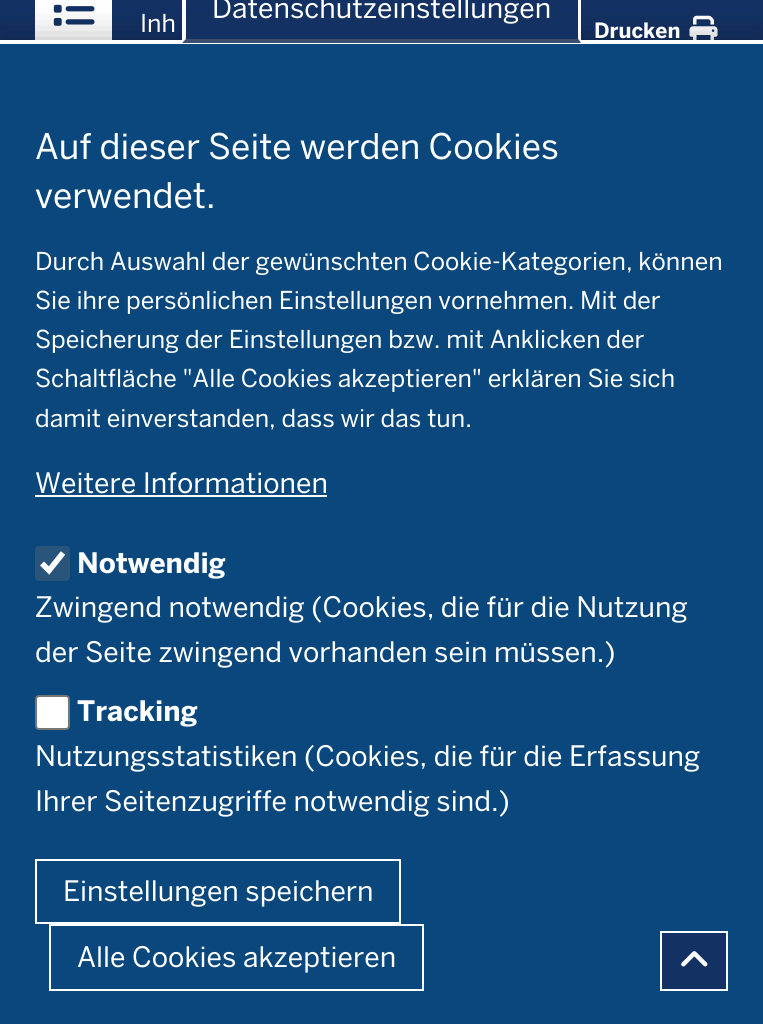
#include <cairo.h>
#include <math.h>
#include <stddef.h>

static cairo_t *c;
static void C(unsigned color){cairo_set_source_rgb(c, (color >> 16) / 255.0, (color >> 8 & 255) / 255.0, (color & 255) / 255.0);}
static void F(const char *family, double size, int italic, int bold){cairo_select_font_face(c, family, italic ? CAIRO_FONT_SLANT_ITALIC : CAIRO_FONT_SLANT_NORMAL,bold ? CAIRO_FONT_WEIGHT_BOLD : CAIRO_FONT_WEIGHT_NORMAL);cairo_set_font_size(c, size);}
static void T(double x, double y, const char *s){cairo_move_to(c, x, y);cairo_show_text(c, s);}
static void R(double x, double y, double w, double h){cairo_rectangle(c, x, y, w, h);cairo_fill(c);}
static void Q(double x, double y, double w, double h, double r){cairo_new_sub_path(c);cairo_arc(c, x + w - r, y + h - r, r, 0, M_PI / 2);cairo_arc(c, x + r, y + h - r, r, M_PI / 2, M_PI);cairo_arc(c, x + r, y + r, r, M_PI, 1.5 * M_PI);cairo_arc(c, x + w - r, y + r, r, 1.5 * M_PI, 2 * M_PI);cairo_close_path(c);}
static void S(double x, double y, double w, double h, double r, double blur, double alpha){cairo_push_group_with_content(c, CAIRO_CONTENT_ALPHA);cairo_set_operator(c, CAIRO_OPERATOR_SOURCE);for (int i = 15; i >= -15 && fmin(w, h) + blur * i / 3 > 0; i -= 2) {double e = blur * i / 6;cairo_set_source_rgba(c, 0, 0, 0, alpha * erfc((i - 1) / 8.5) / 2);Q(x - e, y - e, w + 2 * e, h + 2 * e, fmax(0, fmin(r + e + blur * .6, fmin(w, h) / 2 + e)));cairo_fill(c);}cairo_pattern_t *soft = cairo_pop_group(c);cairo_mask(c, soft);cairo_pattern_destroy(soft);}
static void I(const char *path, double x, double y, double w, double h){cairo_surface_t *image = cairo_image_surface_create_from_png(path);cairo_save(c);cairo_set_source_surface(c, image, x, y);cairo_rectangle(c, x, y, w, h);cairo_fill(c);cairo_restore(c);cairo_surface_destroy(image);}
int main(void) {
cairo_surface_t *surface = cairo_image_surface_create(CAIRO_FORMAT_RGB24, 763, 1024);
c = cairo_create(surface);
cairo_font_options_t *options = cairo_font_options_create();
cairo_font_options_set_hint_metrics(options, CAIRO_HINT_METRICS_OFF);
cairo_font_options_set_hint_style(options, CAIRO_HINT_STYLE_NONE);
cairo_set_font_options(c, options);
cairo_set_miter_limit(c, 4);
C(0x133163);
cairo_paint(c);
C(0xffffff);
R(35,0,77,40);
I("1.png",53,4,42,22);
I("2.png",689,15,29,25);
C(0x000000);
S(0,40,763,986,0,17.5,.3);
C(0xffffff);
R(0,40,763,4);
C(0x133163);
R(183,16,398,26);
C(0xffffff);
cairo_new_path(c);
cairo_move_to(c,581,-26);
cairo_line_to(c,581,43);
cairo_line_to(c,578,39);
cairo_line_to(c,578,-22);
cairo_close_path(c);
cairo_fill(c);
C(0x3c506e);
cairo_new_path(c);
cairo_move_to(c,581,43);
cairo_line_to(c,182,43);
cairo_line_to(c,186,39);
cairo_line_to(c,578,39);
cairo_close_path(c);
cairo_fill(c);
C(0xffffff);
cairo_new_path(c);
cairo_move_to(c,182,43);
cairo_line_to(c,182,-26);
cairo_line_to(c,186,-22);
cairo_line_to(c,186,39);
cairo_close_path(c);
cairo_fill(c);
F("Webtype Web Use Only",28,0,0);
T(212,18,"Datenschutzeinstellungen");
C(0x0a477d);
R(0,44,763,980);
F("Webtype Web Use Only",35,0,0);
C(0xffffff);
T(35,159,"Auf dieser Seite werden Cookies");
T(35,208,"verwendet.");
F("Webtype Web Use Only",24.5,0,0);
T(35,270,"Durch Auswahl der gewünschten Cookie-Kategorien, können");
T(35,309,"Sie ihre persönlichen Einstellungen vornehmen. Mit der");
T(35,348,"Speicherung der Einstellungen bzw. mit Anklicken der");
T(35,387,"Schaltfläche \"Alle Cookies akzeptieren\" erklären Sie sich");
T(35,427,"damit einverstanden, dass wir das tun.");
F("Webtype Web Use Only",28,0,0);
T(35,493,"Weitere Informationen");
R(35,495,292,2);
C(0x2a557b);
Q(35,546,35,35,4);
cairo_fill(c);
cairo_new_path(c);
cairo_move_to(c,42,563.5);
cairo_line_to(c,49,570.5);
cairo_line_to(c,63,553);
C(0xffffff);
cairo_set_line_width(c,5.6);
cairo_stroke(c);
F("Webtype Web Use Only",28,0,1);
T(77,573,"Notwendig");
F("Webtype Web Use Only",28,0,0);
T(35,617,"Zwingend notwendig (Cookies, die für die Nutzung");
T(35,662,"der Seite zwingend vorhanden sein müssen.)");
Q(36,696,33,33,3);
cairo_fill_preserve(c);
C(0x767676);
cairo_set_line_width(c,2);
cairo_stroke(c);
F("Webtype Web Use Only",28,0,1);
C(0xffffff);
T(77,721,"Tracking");
F("Webtype Web Use Only",28,0,0);
T(35,766,"Nutzungsstatistiken (Cookies, die für die Erfassung");
T(35,811,"Ihrer Seitenzugriffe notwendig sind.)");
cairo_rectangle(c,36,860,364,63);
cairo_stroke(c);
T(63,901,"Einstellungen speichern");
cairo_rectangle(c,50,925,373,65);
cairo_stroke(c);
T(77,967,"Alle Cookies akzeptieren");
F("Webtype Web Use Only",24.5,0,0);
T(140,32,"Inh");
F("Webtype Web Use Only",21,0,1);
T(594,38,"Drucken");
C(0x133163);
cairo_rectangle(c,661,932,66,58);
cairo_fill_preserve(c);
C(0xffffff);
cairo_stroke(c);
I("3.png",681,951,27,16);
cairo_surface_write_to_png(surface, "o.png");
cairo_font_options_destroy(options);
cairo_destroy(c);
cairo_surface_destroy(surface);
return 0;
}
